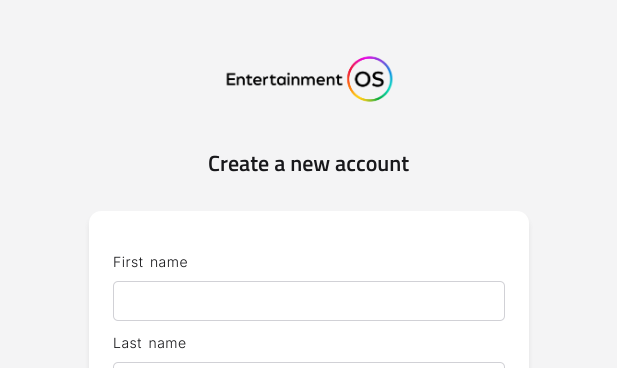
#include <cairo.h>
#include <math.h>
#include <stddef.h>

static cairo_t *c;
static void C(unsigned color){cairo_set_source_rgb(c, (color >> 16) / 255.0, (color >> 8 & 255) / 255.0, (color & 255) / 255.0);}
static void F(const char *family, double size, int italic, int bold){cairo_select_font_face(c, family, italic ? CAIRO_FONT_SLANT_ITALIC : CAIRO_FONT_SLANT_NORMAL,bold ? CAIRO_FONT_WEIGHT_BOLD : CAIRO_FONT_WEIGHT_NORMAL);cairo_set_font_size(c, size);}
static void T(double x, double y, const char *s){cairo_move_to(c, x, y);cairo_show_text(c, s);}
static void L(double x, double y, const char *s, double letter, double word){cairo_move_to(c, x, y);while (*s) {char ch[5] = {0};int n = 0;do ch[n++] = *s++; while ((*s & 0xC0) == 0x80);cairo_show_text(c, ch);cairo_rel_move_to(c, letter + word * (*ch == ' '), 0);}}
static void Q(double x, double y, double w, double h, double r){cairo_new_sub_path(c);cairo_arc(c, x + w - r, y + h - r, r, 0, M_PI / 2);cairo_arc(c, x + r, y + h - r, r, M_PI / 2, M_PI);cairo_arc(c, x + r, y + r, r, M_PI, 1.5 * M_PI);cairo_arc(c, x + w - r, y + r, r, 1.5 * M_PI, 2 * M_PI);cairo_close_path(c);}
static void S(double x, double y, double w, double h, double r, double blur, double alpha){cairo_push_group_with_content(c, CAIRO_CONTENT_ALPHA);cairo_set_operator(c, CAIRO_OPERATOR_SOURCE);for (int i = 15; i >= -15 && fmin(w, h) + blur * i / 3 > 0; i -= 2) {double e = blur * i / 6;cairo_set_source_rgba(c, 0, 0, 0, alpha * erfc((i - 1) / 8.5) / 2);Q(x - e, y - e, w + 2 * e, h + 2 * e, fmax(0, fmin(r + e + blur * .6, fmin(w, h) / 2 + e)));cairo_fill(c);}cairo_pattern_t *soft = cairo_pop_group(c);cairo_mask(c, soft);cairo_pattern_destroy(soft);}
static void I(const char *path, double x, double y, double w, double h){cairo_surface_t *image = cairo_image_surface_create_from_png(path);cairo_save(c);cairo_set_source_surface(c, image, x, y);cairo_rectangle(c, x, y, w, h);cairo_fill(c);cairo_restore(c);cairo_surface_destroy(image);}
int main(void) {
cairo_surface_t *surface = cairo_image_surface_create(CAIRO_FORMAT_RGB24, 617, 368);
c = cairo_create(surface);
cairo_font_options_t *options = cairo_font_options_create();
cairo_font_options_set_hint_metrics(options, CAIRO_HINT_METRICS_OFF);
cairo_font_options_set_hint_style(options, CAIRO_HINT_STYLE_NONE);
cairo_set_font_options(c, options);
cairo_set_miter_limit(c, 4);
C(0xf4f4f5);
cairo_paint(c);
I("1.png",226,56,167,46);
F("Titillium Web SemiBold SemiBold",22,0,0);
C(0x18181b);
T(208,171,"Create a new account");
C(0x000000);
S(90,216,438,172,11,3,.1);
C(0xffffff);
Q(89,211,440,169,12);
cairo_fill(c);
F("Inter Light",14,0,0);
C(0x18181b);
L(113,267,"First name",.5,2);
Q(113.5,281.5,391,39,4.5);
C(0xd1d1d6);
cairo_set_line_width(c,1);
cairo_stroke(c);
C(0x18181b);
L(113,348,"Last name",.5,2);
Q(113.5,362.5,391,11,4.5);
C(0xd1d1d6);
cairo_stroke(c);
cairo_surface_write_to_png(surface, "o.png");
cairo_font_options_destroy(options);
cairo_destroy(c);
cairo_surface_destroy(surface);
return 0;
}
